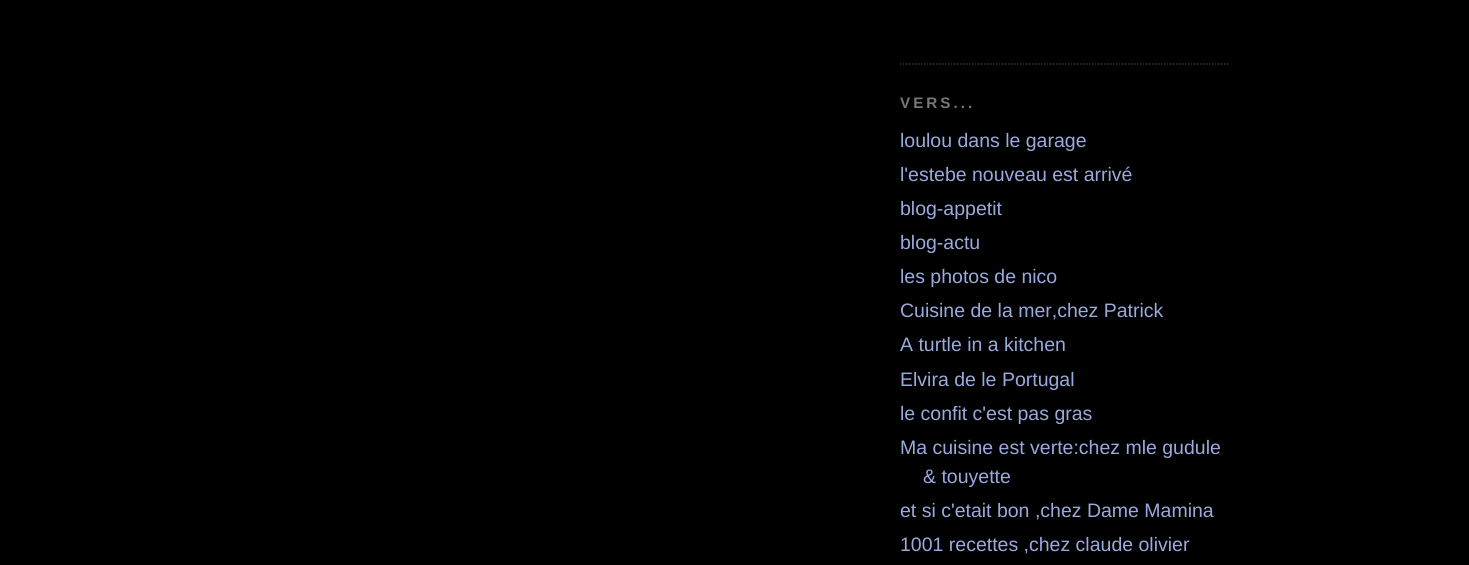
#include <cairo.h>
#include <math.h>
#include <stddef.h>

static cairo_t *c;
static void C(unsigned color){cairo_set_source_rgb(c, (color >> 16) / 255.0, (color >> 8 & 255) / 255.0, (color & 255) / 255.0);}
static void F(const char *family, double size, int italic, int bold){cairo_select_font_face(c, family, italic ? CAIRO_FONT_SLANT_ITALIC : CAIRO_FONT_SLANT_NORMAL,bold ? CAIRO_FONT_WEIGHT_BOLD : CAIRO_FONT_WEIGHT_NORMAL);cairo_set_font_size(c, size);}
static void T(double x, double y, const char *s){cairo_move_to(c, x, y);cairo_show_text(c, s);}
static void L(double x, double y, const char *s, double letter, double word){cairo_move_to(c, x, y);while (*s) {char ch[5] = {0};int n = 0;do ch[n++] = *s++; while ((*s & 0xC0) == 0x80);cairo_show_text(c, ch);cairo_rel_move_to(c, letter + word * (*ch == ' '), 0);}}
int main(void) {
cairo_surface_t *surface = cairo_image_surface_create(CAIRO_FORMAT_RGB24, 1469, 565);
c = cairo_create(surface);
cairo_font_options_t *options = cairo_font_options_create();
cairo_font_options_set_hint_metrics(options, CAIRO_HINT_METRICS_OFF);
cairo_font_options_set_hint_style(options, CAIRO_HINT_STYLE_NONE);
cairo_set_font_options(c, options);
cairo_set_miter_limit(c, 4);
C(0x000000);
cairo_paint(c);
cairo_new_path(c);
cairo_move_to(c,900,64);
cairo_line_to(c,1230,64);
C(0x333333);
cairo_set_line_width(c,1.5);
cairo_set_dash(c,(double[]){1.5,1.5},2,0);
cairo_stroke(c);
F("Liberation Sans",15.25,0,1);
C(0x777777);
L(900,108,"VERS...",3,0);
F("Liberation Sans",19.5,0,0);
C(0x99aadd);
T(900,147,"loulou dans le garage");
T(900,181,"l'estebe nouveau est arrivé");
T(900,215,"blog-appetit");
T(900,249,"blog-actu");
T(900,283,"les photos de nico");
T(900,317,"Cuisine de la mer,chez Patrick");
T(900,351,"A turtle in a kitchen");
T(900,386,"Elvira de le Portugal");
T(900,420,"le confit c'est pas gras");
T(900,454,"Ma cuisine est verte:chez mle gudule");
T(923,483,"& touyette");
T(900,517,"et si c'etait bon ,chez Dame Mamina");
T(900,551,"1001 recettes ,chez claude olivier");
cairo_surface_write_to_png(surface, "o.png");
cairo_font_options_destroy(options);
cairo_destroy(c);
cairo_surface_destroy(surface);
return 0;
}
